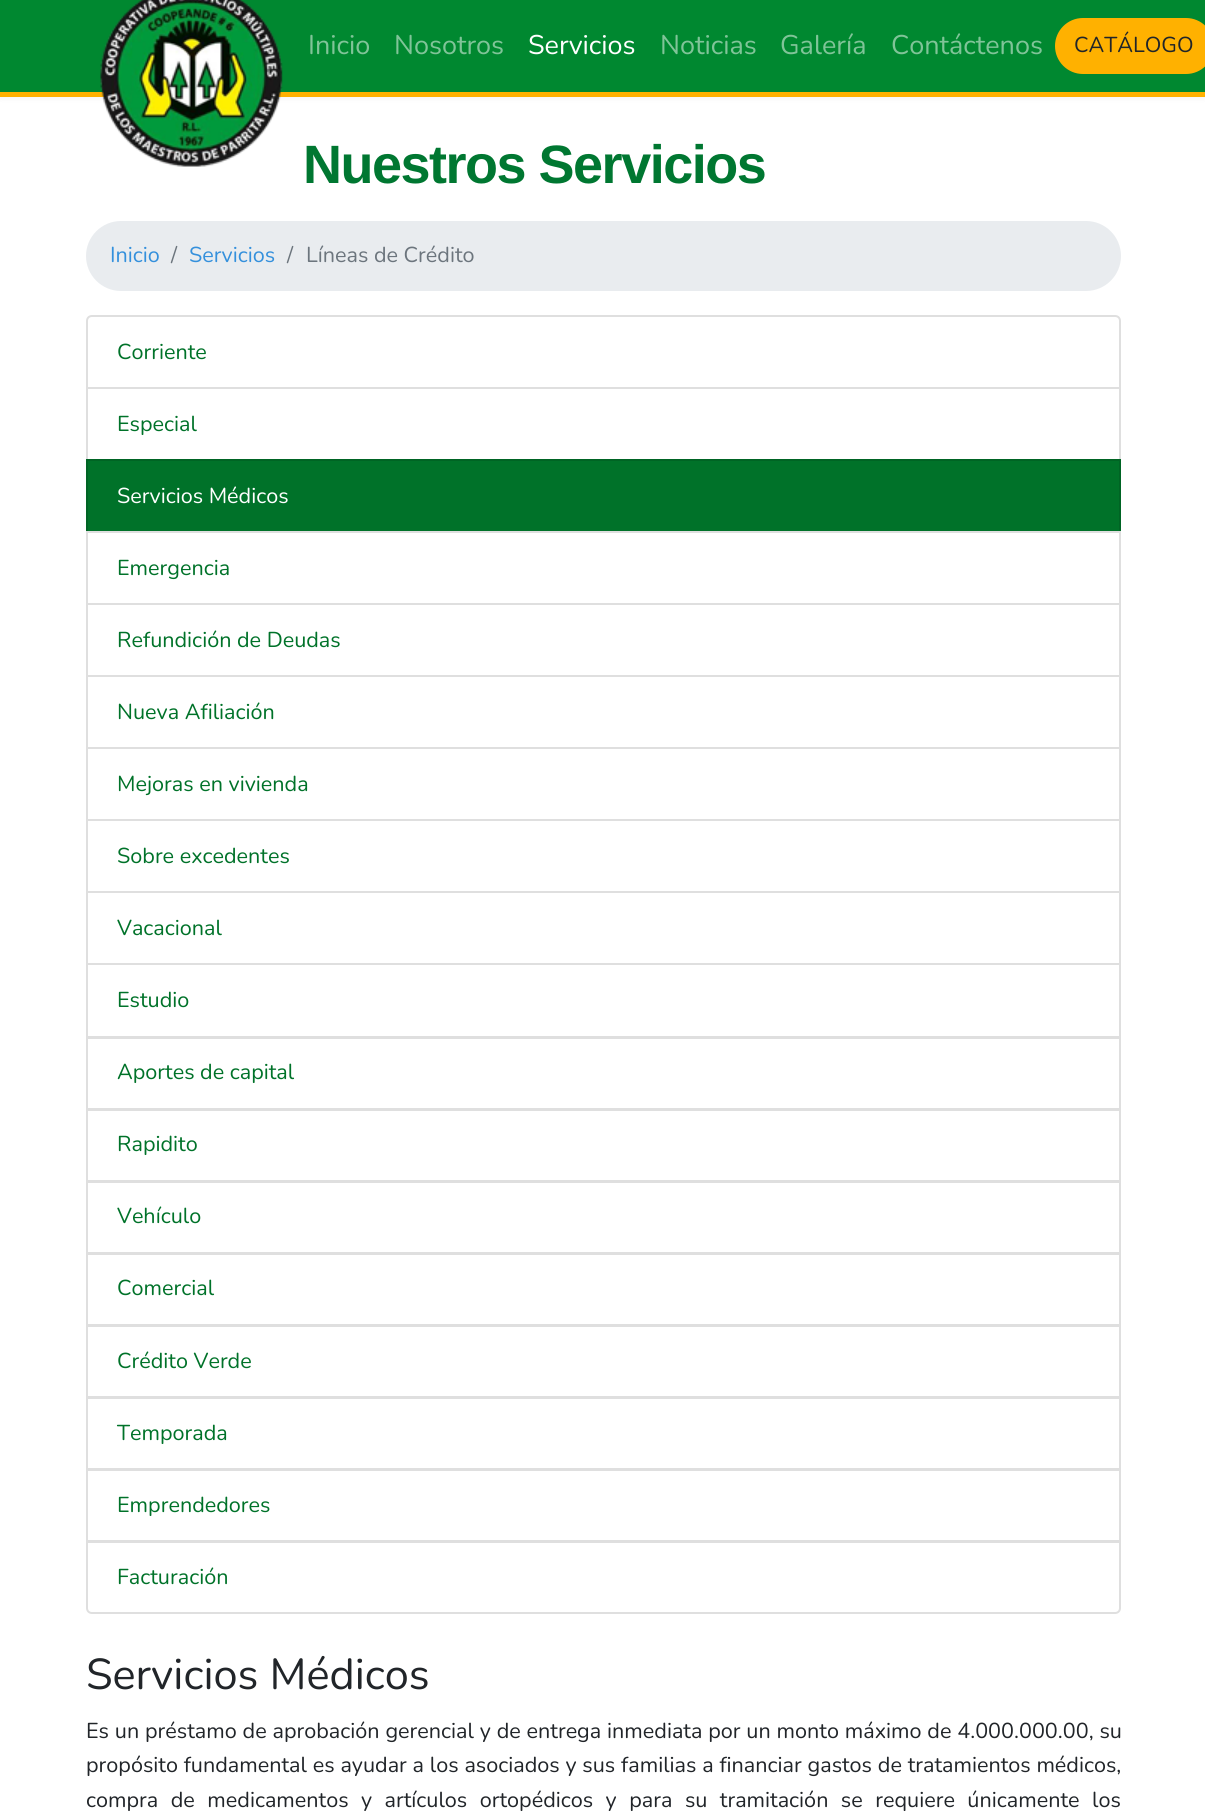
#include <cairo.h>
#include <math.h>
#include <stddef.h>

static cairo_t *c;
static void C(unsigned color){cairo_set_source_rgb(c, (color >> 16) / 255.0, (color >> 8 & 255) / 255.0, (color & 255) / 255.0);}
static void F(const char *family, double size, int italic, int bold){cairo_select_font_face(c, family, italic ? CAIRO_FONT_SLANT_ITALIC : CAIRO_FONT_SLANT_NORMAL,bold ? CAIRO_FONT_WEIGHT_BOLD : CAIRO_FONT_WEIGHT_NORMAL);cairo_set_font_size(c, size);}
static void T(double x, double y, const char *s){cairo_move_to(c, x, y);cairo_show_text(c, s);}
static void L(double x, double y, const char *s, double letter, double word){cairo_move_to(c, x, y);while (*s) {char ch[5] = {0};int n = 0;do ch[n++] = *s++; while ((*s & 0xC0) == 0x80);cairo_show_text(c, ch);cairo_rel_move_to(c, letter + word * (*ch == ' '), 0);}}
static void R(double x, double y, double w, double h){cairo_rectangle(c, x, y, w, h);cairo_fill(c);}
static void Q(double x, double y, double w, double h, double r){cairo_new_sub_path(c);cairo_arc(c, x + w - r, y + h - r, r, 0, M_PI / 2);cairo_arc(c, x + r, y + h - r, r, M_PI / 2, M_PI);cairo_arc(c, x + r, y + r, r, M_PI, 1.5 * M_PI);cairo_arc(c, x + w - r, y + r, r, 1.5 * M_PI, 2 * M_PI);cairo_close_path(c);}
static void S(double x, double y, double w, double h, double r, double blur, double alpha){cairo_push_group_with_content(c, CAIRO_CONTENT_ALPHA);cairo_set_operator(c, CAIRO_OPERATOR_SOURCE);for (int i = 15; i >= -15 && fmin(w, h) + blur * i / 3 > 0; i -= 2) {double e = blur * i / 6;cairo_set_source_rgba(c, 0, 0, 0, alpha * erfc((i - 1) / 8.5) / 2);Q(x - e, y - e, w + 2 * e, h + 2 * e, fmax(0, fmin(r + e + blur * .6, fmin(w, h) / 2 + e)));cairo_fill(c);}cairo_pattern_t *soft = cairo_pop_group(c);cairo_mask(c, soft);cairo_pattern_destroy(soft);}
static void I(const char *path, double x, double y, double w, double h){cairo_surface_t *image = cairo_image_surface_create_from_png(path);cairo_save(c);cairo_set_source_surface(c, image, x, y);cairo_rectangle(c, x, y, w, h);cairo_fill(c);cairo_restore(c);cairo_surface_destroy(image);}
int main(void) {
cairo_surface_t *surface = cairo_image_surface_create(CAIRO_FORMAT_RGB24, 1205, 1815);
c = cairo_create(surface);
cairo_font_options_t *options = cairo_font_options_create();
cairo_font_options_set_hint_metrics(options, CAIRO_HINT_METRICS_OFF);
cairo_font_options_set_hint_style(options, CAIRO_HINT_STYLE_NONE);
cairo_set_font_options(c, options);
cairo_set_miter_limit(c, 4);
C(0xffffff);
cairo_paint(c);
C(0x000000);
S(0,3,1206,96,0,3,.04);
C(0x008830);
R(0,0,1205,92);
C(0xffb100);
R(0,92,1205,5);
I("1.png",100,0,183,167);
F("Nunito ExtraLight",27,0,0);
C(0x80c498);
T(308,54,"Inicio");
T(394,54,"Nosotros");
C(0xffffff);
T(528,54,"Servicios");
C(0x80c498);
T(660,54,"Noticias");
T(780,54,"Galería");
T(891,54,"Contáctenos");
C(0xffb100);
Q(1056,19,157,54,27);
cairo_fill_preserve(c);
cairo_stroke(c);
F("Nunito ExtraLight",21.6,0,0);
C(0x212529);
T(1074,52,"CATÁLOGO");
F("Liberation Sans",54,0,1);
C(0x007731);
L(303,183,"Nuestros Servicios",-1.5,0);
C(0xe9ecef);
Q(86,221,1035,70,35);
cairo_fill(c);
F("Nunito ExtraLight",21.6,0,0);
C(0x3490dc);
T(110,262,"Inicio");
C(0x6c757d);
T(171,262,"/");
C(0x3490dc);
T(189,262,"Servicios");
C(0x6c757d);
T(287,262,"/");
T(306,262,"Líneas de Crédito");
cairo_new_path(c);
cairo_move_to(c,92,316);
cairo_line_to(c,1115,316);
cairo_curve_to(c,1118,316,1120,318,1120,321);
cairo_line_to(c,1120,388);
cairo_line_to(c,87,388);
cairo_line_to(c,87,321);
cairo_curve_to(c,87,318,89,316,92,316);
cairo_close_path(c);
C(0xdfdfdf);
cairo_stroke(c);
C(0x007229);
T(117,359,"Corriente");
cairo_rectangle(c,87,388,1033,72);
C(0xdfdfdf);
cairo_stroke(c);
C(0x007229);
T(117,431,"Especial");
cairo_rectangle(c,87,460,1033,72);
cairo_fill_preserve(c);
C(0x006424);
cairo_stroke(c);
C(0xffffff);
T(117,503,"Servicios Médicos");
cairo_rectangle(c,87,532,1033,72);
C(0xdfdfdf);
cairo_stroke(c);
C(0x007229);
T(117,575,"Emergencia");
cairo_rectangle(c,87,604,1033,72);
C(0xdfdfdf);
cairo_stroke(c);
C(0x007229);
T(117,647,"Refundición de Deudas");
cairo_rectangle(c,87,676,1033,72);
C(0xdfdfdf);
cairo_stroke(c);
C(0x007229);
T(117,719,"Nueva Afiliación");
cairo_rectangle(c,87,748,1033,72);
C(0xdfdfdf);
cairo_stroke(c);
C(0x007229);
T(117,791,"Mejoras en vivienda");
cairo_rectangle(c,87,820,1033,72);
C(0xdfdfdf);
cairo_stroke(c);
C(0x007229);
T(117,863,"Sobre excedentes");
cairo_rectangle(c,87,892,1033,72);
C(0xdfdfdf);
cairo_stroke(c);
C(0x007229);
T(117,935,"Vacacional");
cairo_rectangle(c,87,964,1033,73);
C(0xdfdfdf);
cairo_stroke(c);
C(0x007229);
T(117,1007,"Estudio");
cairo_rectangle(c,87,1038,1033,71);
C(0xdfdfdf);
cairo_stroke(c);
C(0x007229);
T(117,1079,"Aportes de capital");
cairo_rectangle(c,87,1110,1033,71);
C(0xdfdfdf);
cairo_stroke(c);
C(0x007229);
T(117,1151,"Rapidito");
cairo_rectangle(c,87,1182,1033,71);
C(0xdfdfdf);
cairo_stroke(c);
C(0x007229);
T(117,1223,"Vehículo");
cairo_rectangle(c,87,1254,1033,71);
C(0xdfdfdf);
cairo_stroke(c);
C(0x007229);
T(117,1295,"Comercial");
cairo_rectangle(c,87,1326,1033,71);
C(0xdfdfdf);
cairo_stroke(c);
C(0x007229);
T(117,1368,"Crédito Verde");
cairo_rectangle(c,87,1398,1033,71);
C(0xdfdfdf);
cairo_stroke(c);
C(0x007229);
T(117,1440,"Temporada");
cairo_rectangle(c,87,1470,1033,71);
C(0xdfdfdf);
cairo_stroke(c);
C(0x007229);
T(117,1512,"Emprendedores");
C(0xffffff);
cairo_new_path(c);
cairo_move_to(c,87,1542);
cairo_line_to(c,1120,1542);
cairo_line_to(c,1120,1608);
cairo_curve_to(c,1120,1611,1118,1613,1115,1613);
cairo_line_to(c,92,1613);
cairo_curve_to(c,89,1613,87,1611,87,1608);
cairo_close_path(c);
cairo_fill_preserve(c);
C(0xdfdfdf);
cairo_stroke(c);
C(0x007229);
T(117,1584,"Facturación");
F("Nunito ExtraLight",43.25,0,0);
C(0x212529);
T(86,1689,"Servicios Médicos");
F("Nunito ExtraLight",21.6,0,0);
L(86,1738,"Es un préstamo de aprobación gerencial y de entrega inmediata por un monto máximo de 4.000.000.00, su",0,.25);
L(86,1772,"propósito fundamental es ayudar a los asociados y sus familias a financiar gastos de tratamientos médicos,",0,.2);
L(86,1807,"compra de medicamentos y artículos ortopédicos y para su tramitación se requiere únicamente los",0,6.9);
cairo_surface_write_to_png(surface, "o.png");
cairo_font_options_destroy(options);
cairo_destroy(c);
cairo_surface_destroy(surface);
return 0;
}
